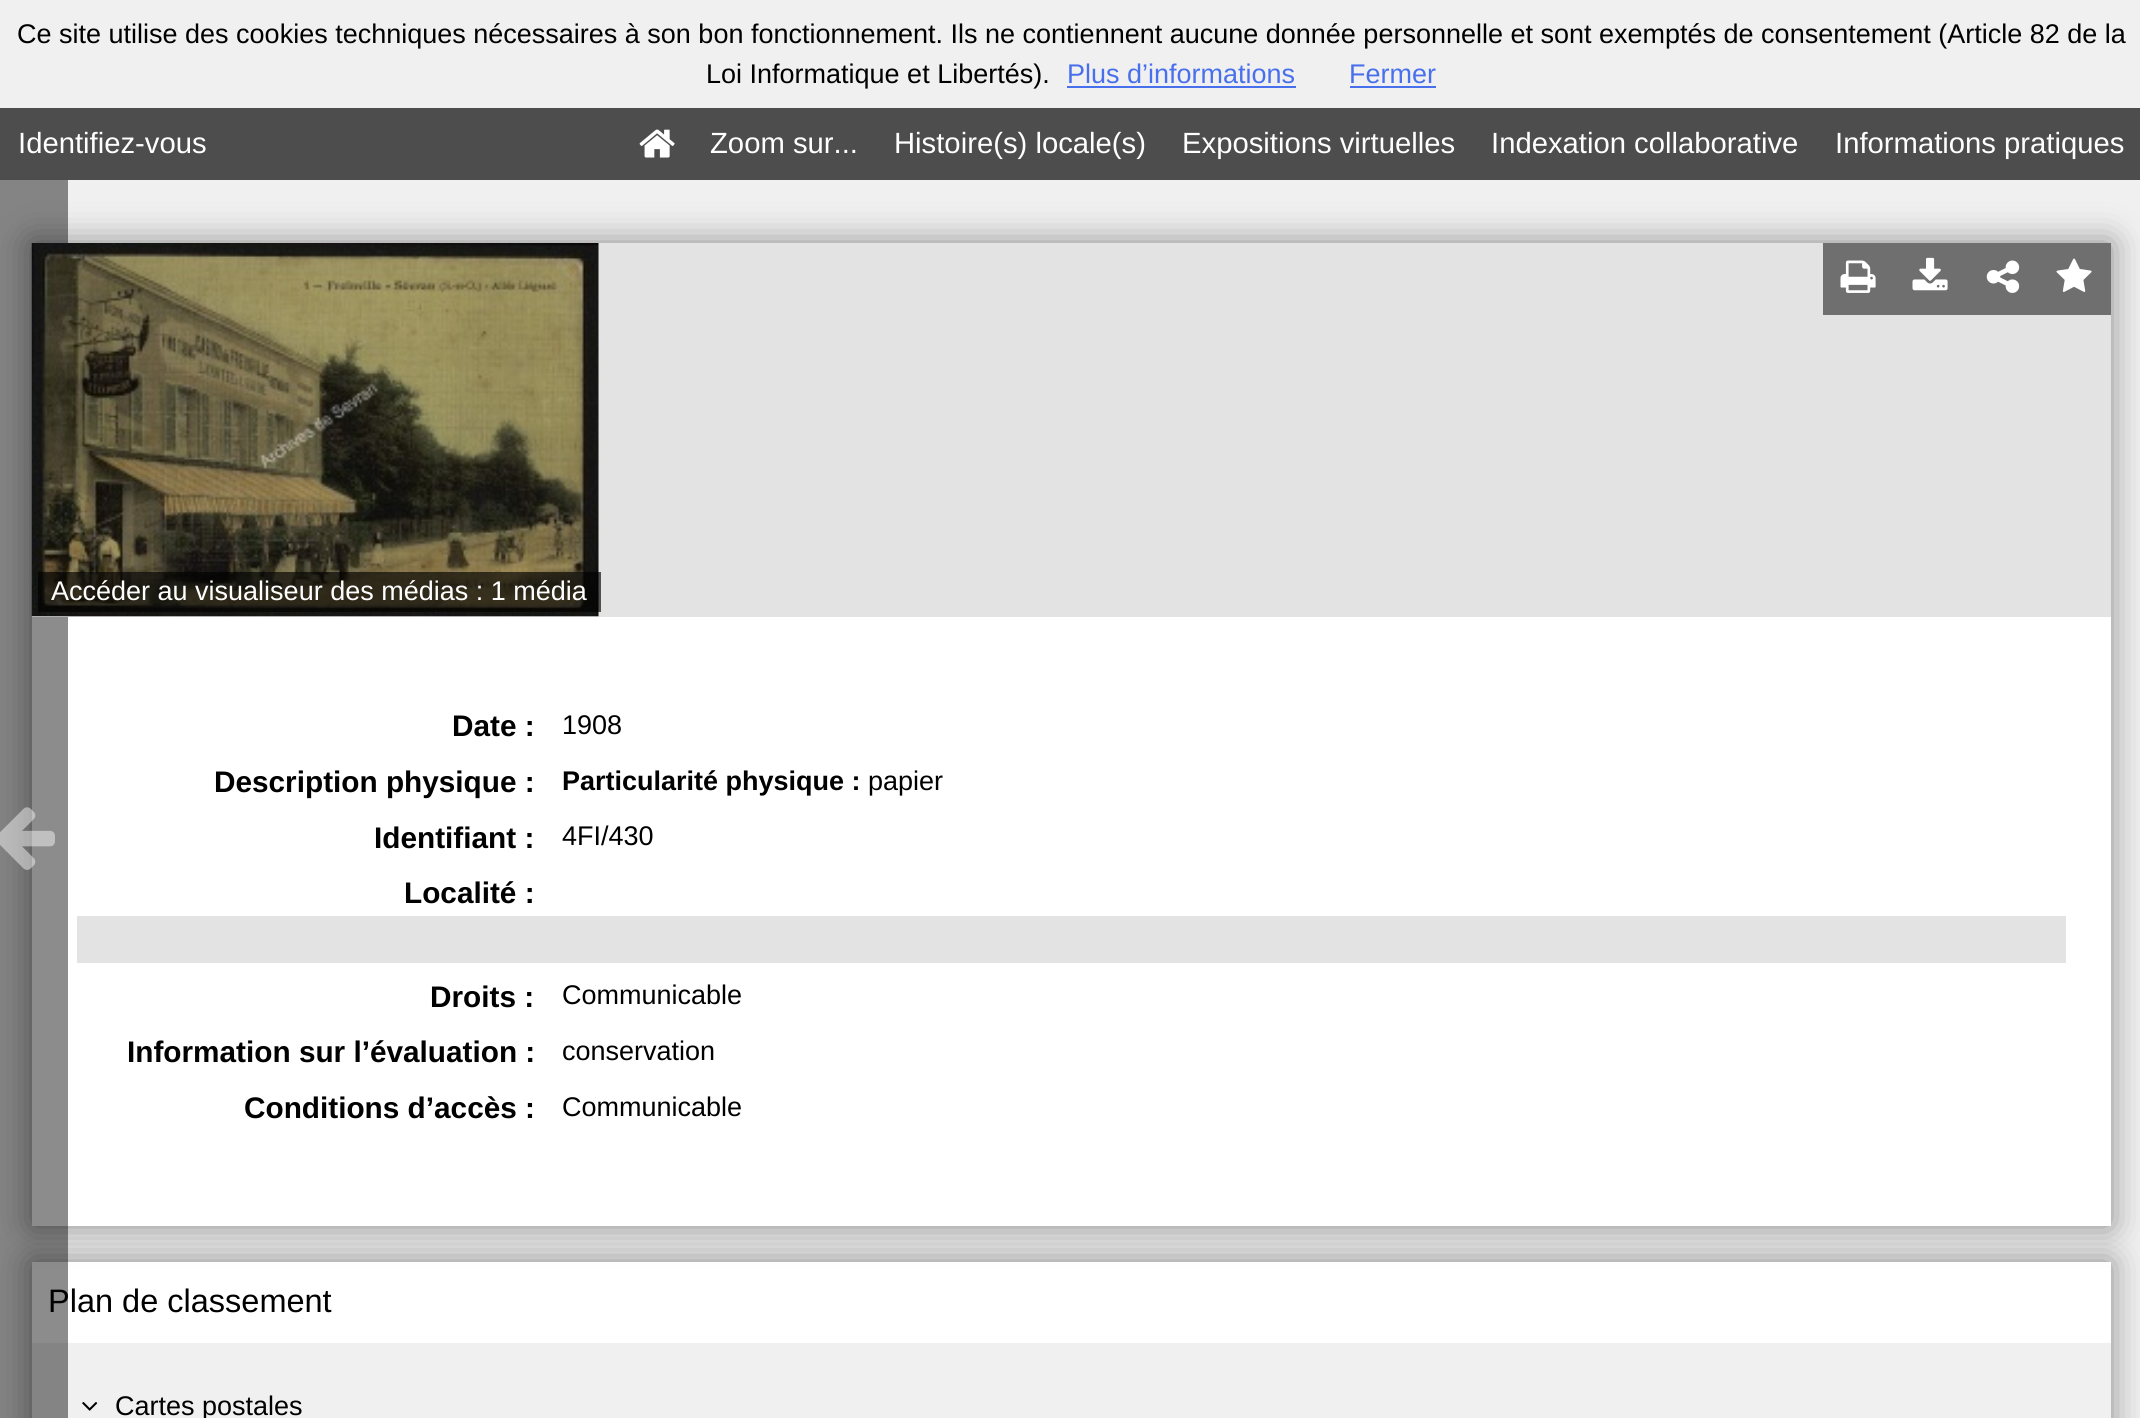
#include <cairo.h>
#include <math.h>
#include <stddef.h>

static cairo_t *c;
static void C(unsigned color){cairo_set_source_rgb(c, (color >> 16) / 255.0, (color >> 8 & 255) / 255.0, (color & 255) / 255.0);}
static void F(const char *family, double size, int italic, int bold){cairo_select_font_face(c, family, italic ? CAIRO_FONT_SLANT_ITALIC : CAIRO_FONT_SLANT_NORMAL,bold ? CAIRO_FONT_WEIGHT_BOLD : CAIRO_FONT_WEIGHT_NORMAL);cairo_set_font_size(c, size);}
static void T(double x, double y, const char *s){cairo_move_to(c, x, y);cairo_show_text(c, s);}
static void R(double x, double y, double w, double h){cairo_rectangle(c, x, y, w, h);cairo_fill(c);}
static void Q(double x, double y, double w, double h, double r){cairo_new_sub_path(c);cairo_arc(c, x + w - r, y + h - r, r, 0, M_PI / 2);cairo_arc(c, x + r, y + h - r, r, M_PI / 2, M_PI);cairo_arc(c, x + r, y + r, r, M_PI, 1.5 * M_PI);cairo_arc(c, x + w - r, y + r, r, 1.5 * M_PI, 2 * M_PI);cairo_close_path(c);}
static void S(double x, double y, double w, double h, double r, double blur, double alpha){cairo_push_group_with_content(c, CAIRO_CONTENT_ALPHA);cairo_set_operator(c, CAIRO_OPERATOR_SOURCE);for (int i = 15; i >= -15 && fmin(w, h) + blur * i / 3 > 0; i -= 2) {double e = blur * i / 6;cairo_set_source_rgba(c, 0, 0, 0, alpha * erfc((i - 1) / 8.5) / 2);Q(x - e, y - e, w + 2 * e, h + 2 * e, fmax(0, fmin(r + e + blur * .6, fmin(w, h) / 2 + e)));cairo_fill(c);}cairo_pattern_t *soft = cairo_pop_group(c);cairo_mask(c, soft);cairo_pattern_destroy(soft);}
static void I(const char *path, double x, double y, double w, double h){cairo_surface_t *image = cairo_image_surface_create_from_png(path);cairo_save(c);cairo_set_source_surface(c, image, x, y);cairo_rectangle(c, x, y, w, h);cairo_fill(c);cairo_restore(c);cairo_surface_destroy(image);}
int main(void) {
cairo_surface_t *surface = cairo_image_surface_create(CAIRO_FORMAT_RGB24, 2140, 1418);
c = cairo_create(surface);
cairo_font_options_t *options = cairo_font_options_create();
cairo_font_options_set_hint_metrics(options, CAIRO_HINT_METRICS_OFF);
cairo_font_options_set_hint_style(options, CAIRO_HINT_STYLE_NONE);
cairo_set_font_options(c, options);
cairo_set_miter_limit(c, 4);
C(0xf0f0f0);
cairo_paint(c);
F("Liberation Sans",27,0,0);
C(0x000000);
T(17,43,"Ce site utilise des cookies techniques nécessaires à son bon fonctionnement. Ils ne contiennent aucune donnée personnelle et sont exemptés de consentement (Article 82 de la");
T(706,83,"Loi Informatique et Libertés).");
C(0x4970ec);
T(1067,83,"Plus d’informations");
R(1067,86,229,2);
T(1349,83,"Fermer");
R(1350,86,86,2);
C(0x4d4d4d);
R(0,108,2140,72);
F("Liberation Sans",29.25,0,0);
C(0xffffff);
T(18,153,"Identifiez-vous");
I("1.png",639,129,36,29);
T(710,153,"Zoom sur...");
T(894,153,"Histoire(s) locale(s)");
T(1182,153,"Expositions virtuelles");
T(1491,153,"Indexation collaborative");
T(1835,153,"Informations pratiques");
C(0x888888);
S(32,1262,2079,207,0,17,1);
C(0xffffff);
R(32,1262,2079,81);
C(0x888888);
S(32,243,2079,983,0,17,1);
C(0xffffff);
R(32,617,2079,609);
F("Liberation Sans",32.5,0,0);
C(0x000000);
T(48,1312,"Plan de classement");
C(0xf0f0f0);
R(32,1343,2079,75);
cairo_set_source_rgba(c,0,0,0,0.45);
R(0,180,68,1238);
I("2.png",0,807,55,63);
C(0xe3e3e3);
R(32,243,2079,374);
C(0x6f6f6f);
R(1823,243,144,72);
I("3.png",1840,260,36,33);
R(1967,243,144,72);
I("4.png",2056,258,36,34);
I("5.png",1912,257,36,34);
I("6.png",1986,260,34,33);
I("7.png",31,243,568,374);
cairo_set_source_rgba(c,0,0,0,0.65);
R(38,572,563,40);
F("Liberation Sans",27,0,0);
C(0xffffff);
T(51,600,"Accéder au visualiseur des médias : 1 média");
F("Liberation Sans",29.75,0,1);
C(0x000000);
T(452,736,"Date :");
F("Liberation Sans",27,0,0);
T(562,734,"1908");
F("Liberation Sans",29.75,0,1);
T(214,792,"Description physique :");
F("Liberation Sans",27,0,1);
T(562,790,"Particularité physique :");
F("Liberation Sans",27,0,0);
T(868,790,"papier");
F("Liberation Sans",29.75,0,1);
T(374,848,"Identifiant :");
F("Liberation Sans",27,0,0);
T(562,845,"4FI/430");
F("Liberation Sans",29.75,0,1);
T(404,903,"Localité :");
C(0xe3e3e3);
R(77,916,1989,47);
C(0x000000);
T(430,1007,"Droits :");
F("Liberation Sans",27,0,0);
T(562,1004,"Communicable");
F("Liberation Sans",29.75,0,1);
T(127,1062,"Information sur l’évaluation :");
F("Liberation Sans",27,0,0);
T(562,1060,"conservation");
F("Liberation Sans",29.75,0,1);
T(244,1118,"Conditions d’accès :");
F("Liberation Sans",27,0,0);
T(562,1116,"Communicable");
I("8.png",82,1402,16,9);
T(115,1415,"Cartes postales");
cairo_surface_write_to_png(surface, "o.png");
cairo_font_options_destroy(options);
cairo_destroy(c);
cairo_surface_destroy(surface);
return 0;
}
